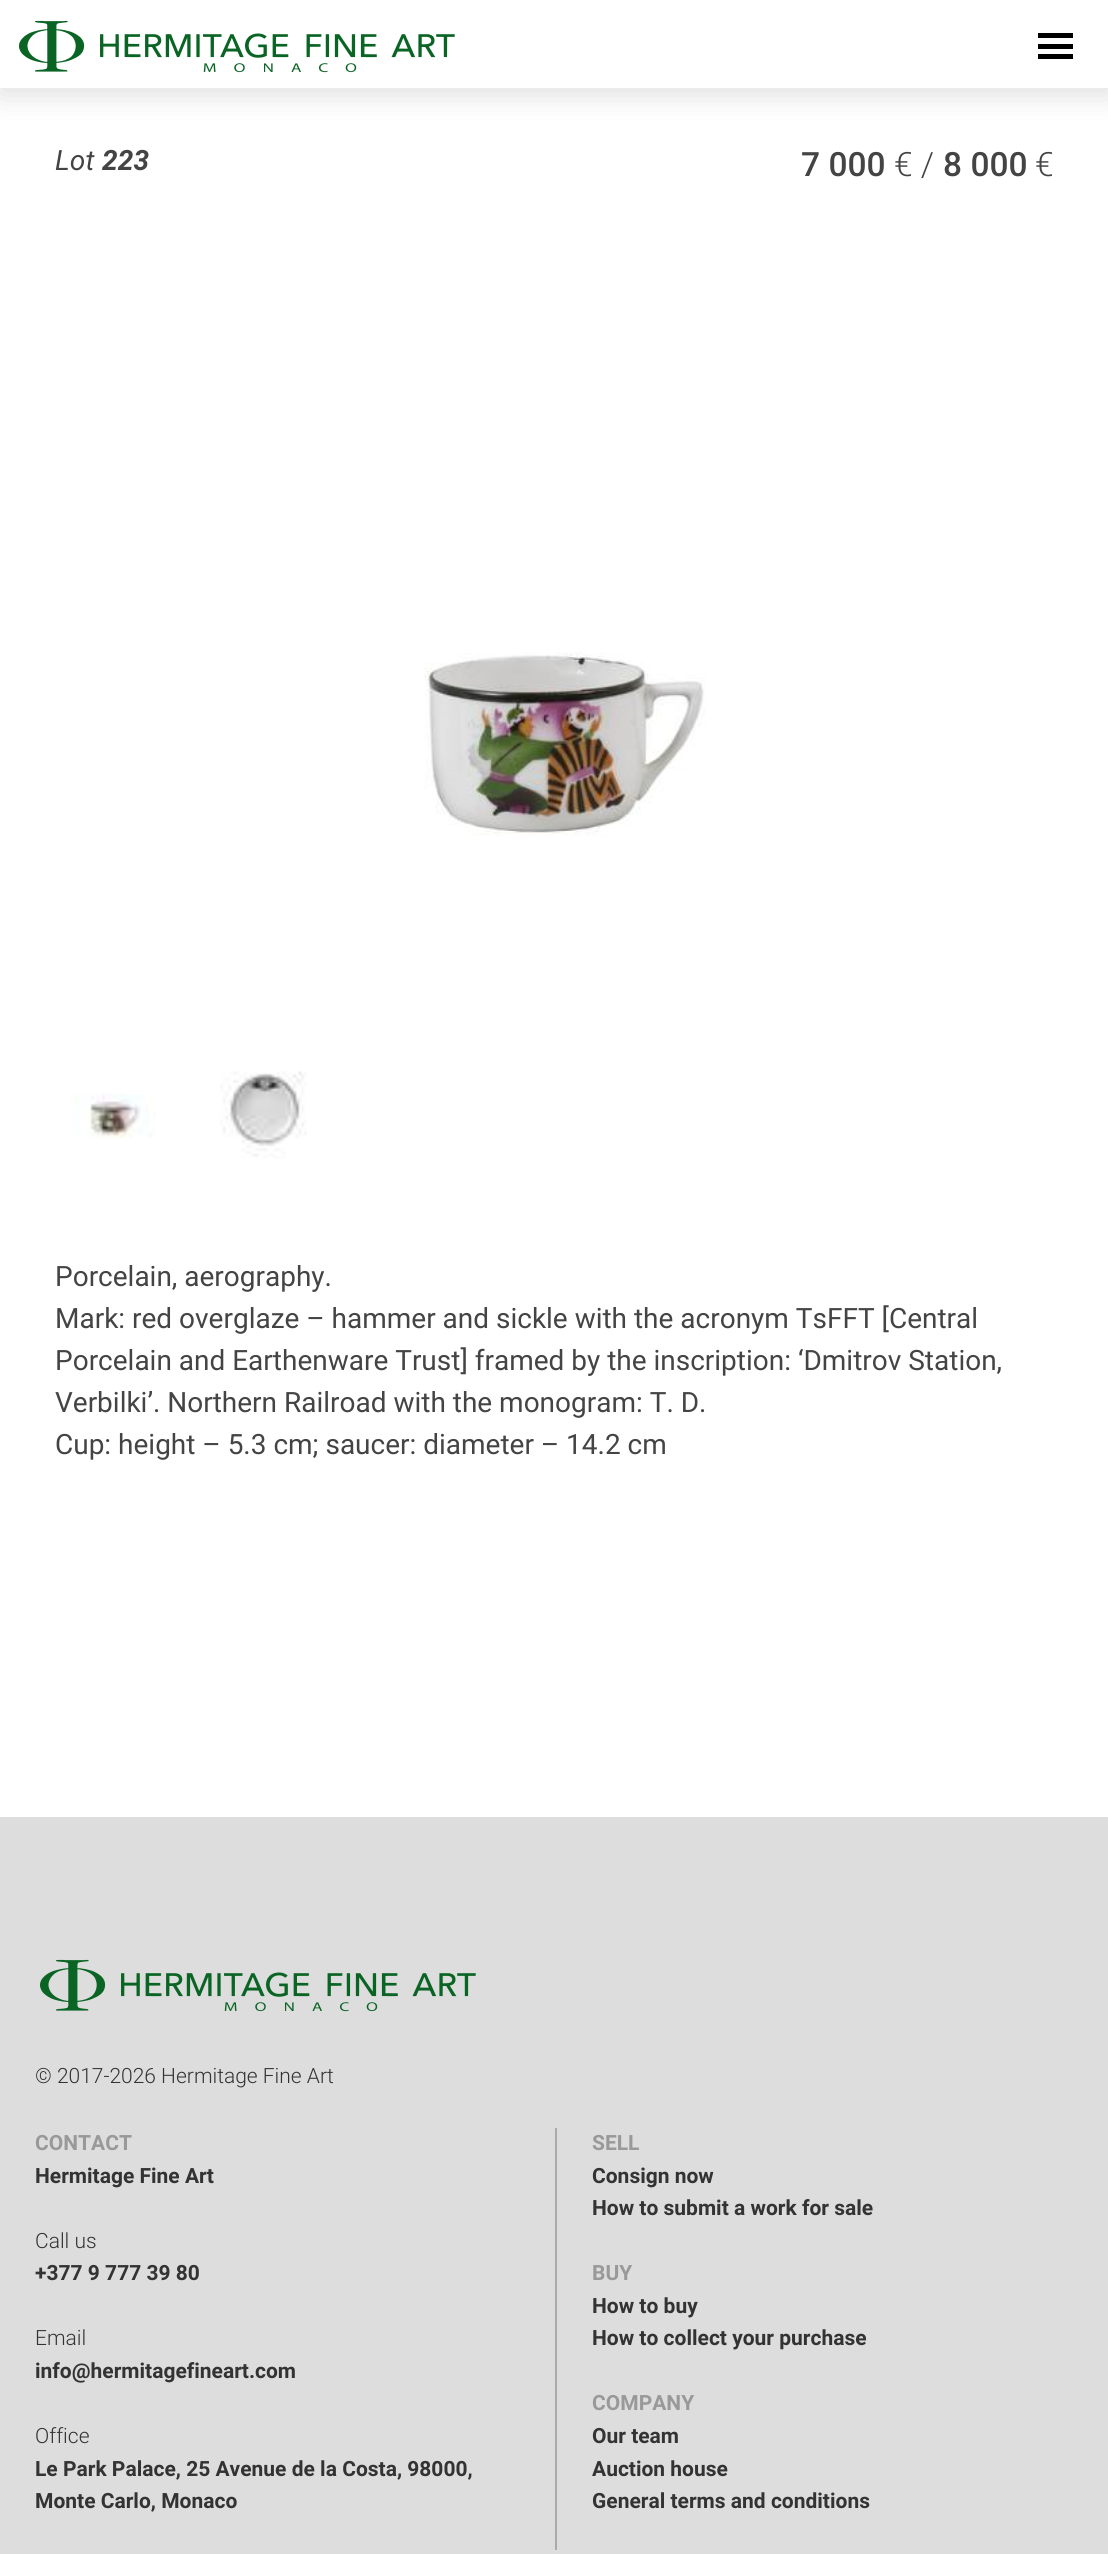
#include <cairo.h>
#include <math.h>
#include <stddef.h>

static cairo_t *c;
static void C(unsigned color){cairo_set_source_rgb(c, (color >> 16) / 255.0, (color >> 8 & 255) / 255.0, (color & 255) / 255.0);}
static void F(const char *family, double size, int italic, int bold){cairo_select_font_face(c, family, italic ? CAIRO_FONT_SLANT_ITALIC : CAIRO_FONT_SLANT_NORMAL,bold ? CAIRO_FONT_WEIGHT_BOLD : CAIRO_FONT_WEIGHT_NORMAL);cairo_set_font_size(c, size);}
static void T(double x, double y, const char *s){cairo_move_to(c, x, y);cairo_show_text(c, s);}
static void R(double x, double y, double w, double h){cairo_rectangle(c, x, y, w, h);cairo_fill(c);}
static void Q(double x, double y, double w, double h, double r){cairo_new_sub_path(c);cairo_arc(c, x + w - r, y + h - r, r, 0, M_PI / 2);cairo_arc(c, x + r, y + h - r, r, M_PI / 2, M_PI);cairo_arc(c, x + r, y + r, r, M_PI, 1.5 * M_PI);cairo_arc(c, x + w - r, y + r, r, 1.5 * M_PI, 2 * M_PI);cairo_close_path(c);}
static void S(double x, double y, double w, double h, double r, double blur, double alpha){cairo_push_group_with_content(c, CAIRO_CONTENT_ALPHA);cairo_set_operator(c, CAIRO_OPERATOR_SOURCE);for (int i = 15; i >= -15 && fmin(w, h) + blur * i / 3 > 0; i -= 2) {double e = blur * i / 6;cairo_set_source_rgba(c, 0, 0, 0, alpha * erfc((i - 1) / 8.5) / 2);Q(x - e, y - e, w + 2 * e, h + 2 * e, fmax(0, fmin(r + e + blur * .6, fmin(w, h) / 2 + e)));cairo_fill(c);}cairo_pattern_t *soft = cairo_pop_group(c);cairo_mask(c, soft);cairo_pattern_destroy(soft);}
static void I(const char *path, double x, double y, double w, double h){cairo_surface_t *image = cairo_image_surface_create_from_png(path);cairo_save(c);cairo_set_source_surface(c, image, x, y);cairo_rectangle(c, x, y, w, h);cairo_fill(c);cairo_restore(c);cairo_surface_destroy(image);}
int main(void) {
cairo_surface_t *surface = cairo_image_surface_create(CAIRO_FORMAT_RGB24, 1108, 2554);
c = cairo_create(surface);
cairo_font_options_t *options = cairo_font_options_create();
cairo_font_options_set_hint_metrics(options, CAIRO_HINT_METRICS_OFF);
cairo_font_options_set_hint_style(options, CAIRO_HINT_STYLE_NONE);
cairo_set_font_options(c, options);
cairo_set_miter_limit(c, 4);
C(0xffffff);
cairo_paint(c);
cairo_save(c);
cairo_set_fill_rule(c,CAIRO_FILL_RULE_EVEN_ODD);
cairo_new_path(c);
cairo_move_to(c,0,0);
cairo_line_to(c,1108,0);
cairo_line_to(c,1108,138);
cairo_line_to(c,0,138);
cairo_close_path(c);
cairo_move_to(c,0,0);
cairo_line_to(c,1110,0);
cairo_line_to(c,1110,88);
cairo_line_to(c,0,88);
cairo_close_path(c);
cairo_clip(c);
C(0x000000);
S(0,7,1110,88,0,14,.13);
cairo_restore(c);
cairo_set_source_rgba(c,1,1,1,0.75);
R(0,87,1108,1);
I("1.png",19,20,436,53);
C(0x000000);
R(1038,44,35,5);
R(1038,33,35,5);
R(1038,54,35,5);
F("Roboto",28,1,0);
C(0x444444);
T(55,170,"Lot");
F("Roboto",28,1,1);
T(102,170,"223");
F("Roboto Medium",33.5,0,0);
T(801,176,"7 000");
F("Roboto Light",33.5,0,0);
T(894,176,"€ /");
F("Roboto Medium",33.5,0,0);
T(943,176,"8 000");
F("Roboto Light",33.5,0,0);
T(1035,176,"€");
I("2.png",424,652,282,184);
I("3.png",73,1093,83,46);
I("4.png",220,1071,87,88);
F("Roboto",28,0,0);
T(55,1286,"Porcelain, aerography.");
T(55,1328,"Mark: red overglaze – hammer and sickle with the acronym TsFFT [Central");
T(55,1370,"Porcelain and Earthenware Trust] framed by the inscription: ‘Dmitrov Station,");
T(55,1412,"Verbilki’. Northern Railroad with the monogram: T. D.");
T(55,1454,"Cup: height – 5.3 cm; saucer: diameter – 14.2 cm");
C(0xdddddd);
R(0,1817,1108,737);
I("5.png",40,1959,436,53);
F("Roboto Light",21,0,0);
C(0x333333);
T(35,2083,"© 2017-2026 Hermitage Fine Art");
F("Roboto",21,0,1);
C(0x999999);
T(35,2150,"CONTACT");
C(0x333333);
T(35,2183,"Hermitage Fine Art");
F("Roboto Light",21,0,0);
T(35,2248,"Call us");
F("Roboto",21,0,1);
T(35,2280,"+377 9 777 39 80");
F("Roboto Light",21,0,0);
T(35,2345,"Email");
F("Roboto",21,0,1);
T(35,2378,"info@hermitagefineart.com");
F("Roboto Light",21,0,0);
T(35,2443,"Office");
F("Roboto",21,0,1);
T(35,2476,"Le Park Palace, 25 Avenue de la Costa, 98000,");
T(35,2508,"Monte Carlo, Monaco");
C(0xaaaaaa);
R(555,2128,2,422);
C(0x999999);
T(592,2150,"SELL");
C(0x333333);
T(592,2183,"Consign now");
T(592,2215,"How to submit a work for sale");
C(0x999999);
T(592,2280,"BUY");
C(0x333333);
T(592,2313,"How to buy");
T(592,2345,"How to collect your purchase");
C(0x999999);
T(592,2410,"COMPANY");
C(0x333333);
T(592,2443,"Our team");
T(592,2476,"Auction house");
T(592,2508,"General terms and conditions");
cairo_surface_write_to_png(surface, "o.png");
cairo_font_options_destroy(options);
cairo_destroy(c);
cairo_surface_destroy(surface);
return 0;
}
